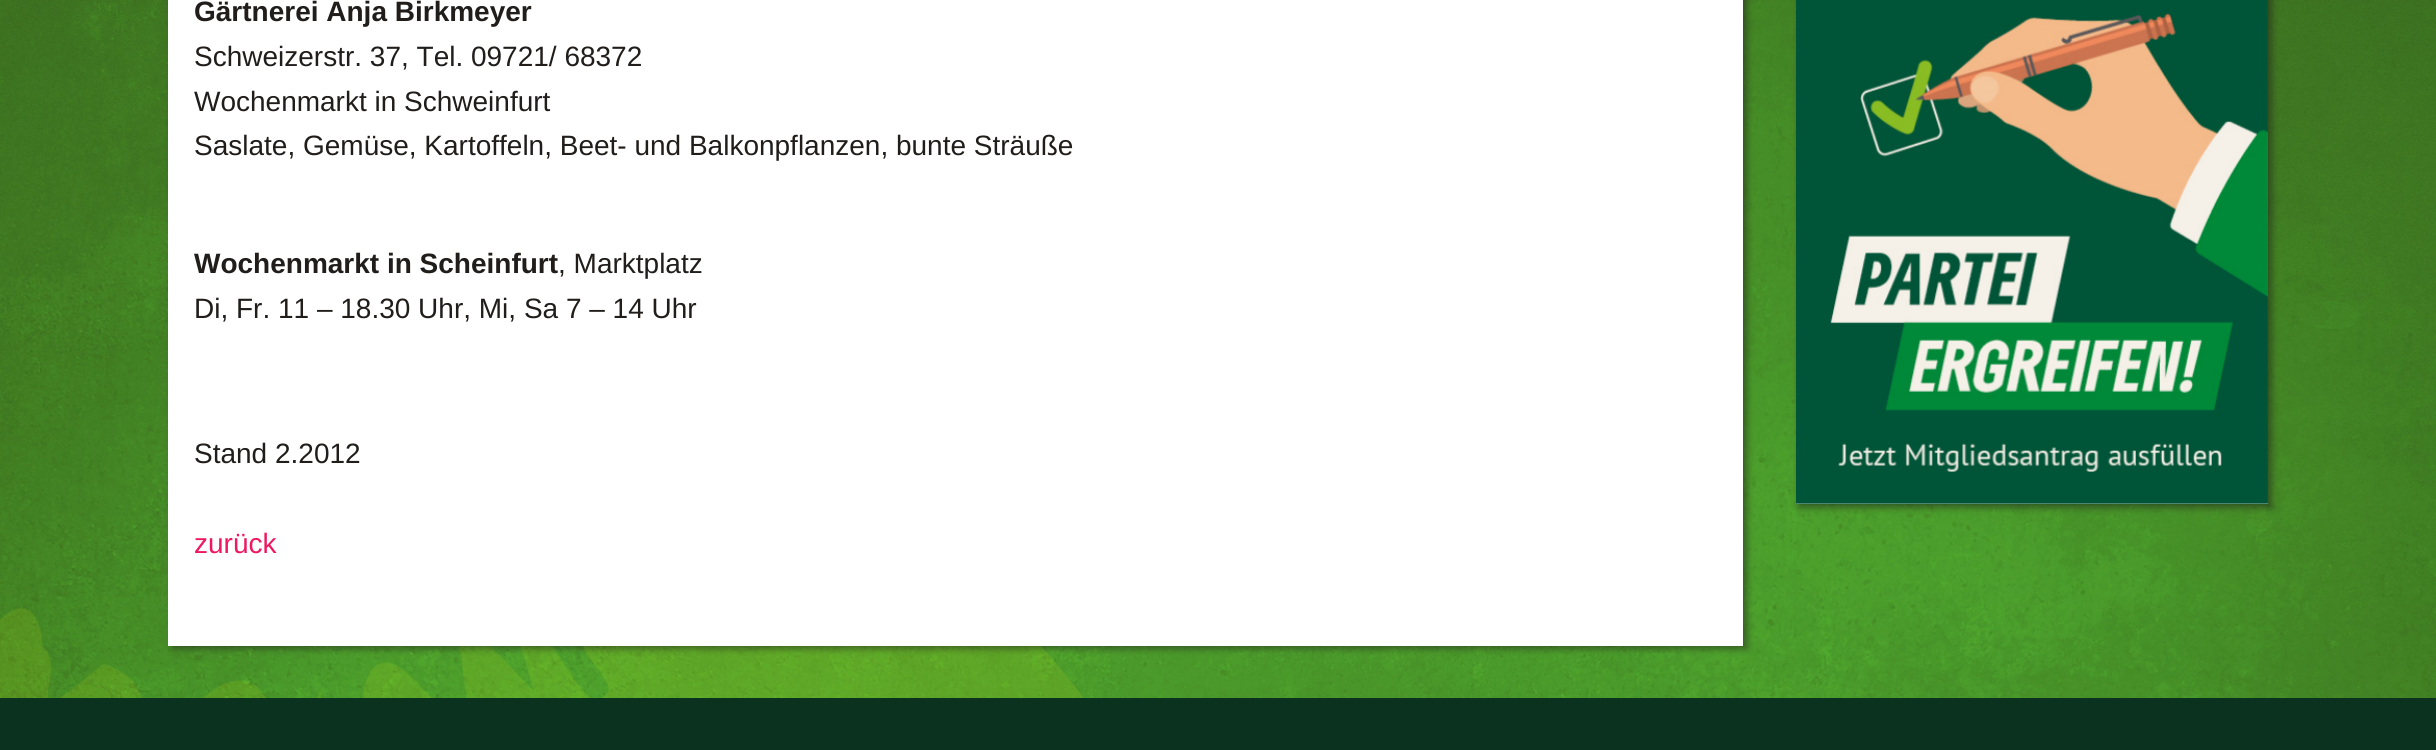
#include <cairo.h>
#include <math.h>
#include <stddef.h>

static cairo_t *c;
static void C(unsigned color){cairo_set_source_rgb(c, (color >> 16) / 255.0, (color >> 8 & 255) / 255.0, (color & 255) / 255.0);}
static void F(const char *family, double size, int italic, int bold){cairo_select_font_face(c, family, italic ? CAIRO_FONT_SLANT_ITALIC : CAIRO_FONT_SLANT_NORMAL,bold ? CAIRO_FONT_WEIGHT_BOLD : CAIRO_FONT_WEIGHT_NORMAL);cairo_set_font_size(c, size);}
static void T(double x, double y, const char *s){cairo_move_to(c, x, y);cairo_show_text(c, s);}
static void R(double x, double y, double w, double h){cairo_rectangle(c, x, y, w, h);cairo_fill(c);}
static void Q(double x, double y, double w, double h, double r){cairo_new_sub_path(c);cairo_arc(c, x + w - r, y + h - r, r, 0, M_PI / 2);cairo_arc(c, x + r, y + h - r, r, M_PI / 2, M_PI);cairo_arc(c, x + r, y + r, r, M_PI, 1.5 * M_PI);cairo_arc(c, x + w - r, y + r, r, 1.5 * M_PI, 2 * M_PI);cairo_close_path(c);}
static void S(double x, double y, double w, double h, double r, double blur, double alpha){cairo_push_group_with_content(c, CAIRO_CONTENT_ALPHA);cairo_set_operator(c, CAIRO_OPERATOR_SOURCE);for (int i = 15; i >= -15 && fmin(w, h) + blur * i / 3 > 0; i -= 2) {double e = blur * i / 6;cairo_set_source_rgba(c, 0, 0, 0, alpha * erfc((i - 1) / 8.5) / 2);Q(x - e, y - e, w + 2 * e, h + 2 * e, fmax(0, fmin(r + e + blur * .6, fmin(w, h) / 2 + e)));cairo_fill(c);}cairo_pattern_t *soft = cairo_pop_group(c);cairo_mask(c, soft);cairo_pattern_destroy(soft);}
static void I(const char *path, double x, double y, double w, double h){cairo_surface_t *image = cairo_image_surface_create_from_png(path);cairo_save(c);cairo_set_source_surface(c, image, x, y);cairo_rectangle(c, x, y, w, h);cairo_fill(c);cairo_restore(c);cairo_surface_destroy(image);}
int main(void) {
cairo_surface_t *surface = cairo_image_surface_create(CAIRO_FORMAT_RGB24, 2436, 750);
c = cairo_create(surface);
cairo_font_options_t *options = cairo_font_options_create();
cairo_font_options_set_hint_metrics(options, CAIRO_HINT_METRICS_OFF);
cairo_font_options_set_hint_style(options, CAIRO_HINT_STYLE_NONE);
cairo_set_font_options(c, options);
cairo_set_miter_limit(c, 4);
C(0xffffff);
cairo_paint(c);
I("1.png",0,0,2436,698);
C(0x201d1b);
S(172,-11,1575,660,0,3.5,.5);
C(0xffffff);
R(168,0,1575,646);
F("Liberation Sans",28,0,1);
C(0x201d1b);
T(194,21,"Gärtnerei Anja Birkmeyer");
F("Liberation Sans",28,0,0);
T(194,66,"Schweizerstr. 37, Tel. 09721/ 68372");
T(194,111,"Wochenmarkt in Schweinfurt");
T(194,155,"Saslate, Gemüse, Kartoffeln, Beet- und Balkonpflanzen, bunte Sträuße");
F("Liberation Sans",28,0,1);
T(194,273,"Wochenmarkt in Scheinfurt");
F("Liberation Sans",28,0,0);
T(558,273,", Marktplatz");
T(194,318,"Di, Fr. 11 – 18.30 Uhr, Mi, Sa 7 – 14 Uhr");
T(194,463,"Stand 2.2012");
C(0xee1861);
T(194,553,"zurück");
C(0x201d1b);
S(1799,-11,473,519,0,3.5,.5);
C(0xffffff);
R(1796,0,472,504);
I("2.png",1796,0,472,505);
C(0x0a321e);
R(0,698,2436,52);
cairo_surface_write_to_png(surface, "o.png");
cairo_font_options_destroy(options);
cairo_destroy(c);
cairo_surface_destroy(surface);
return 0;
}
